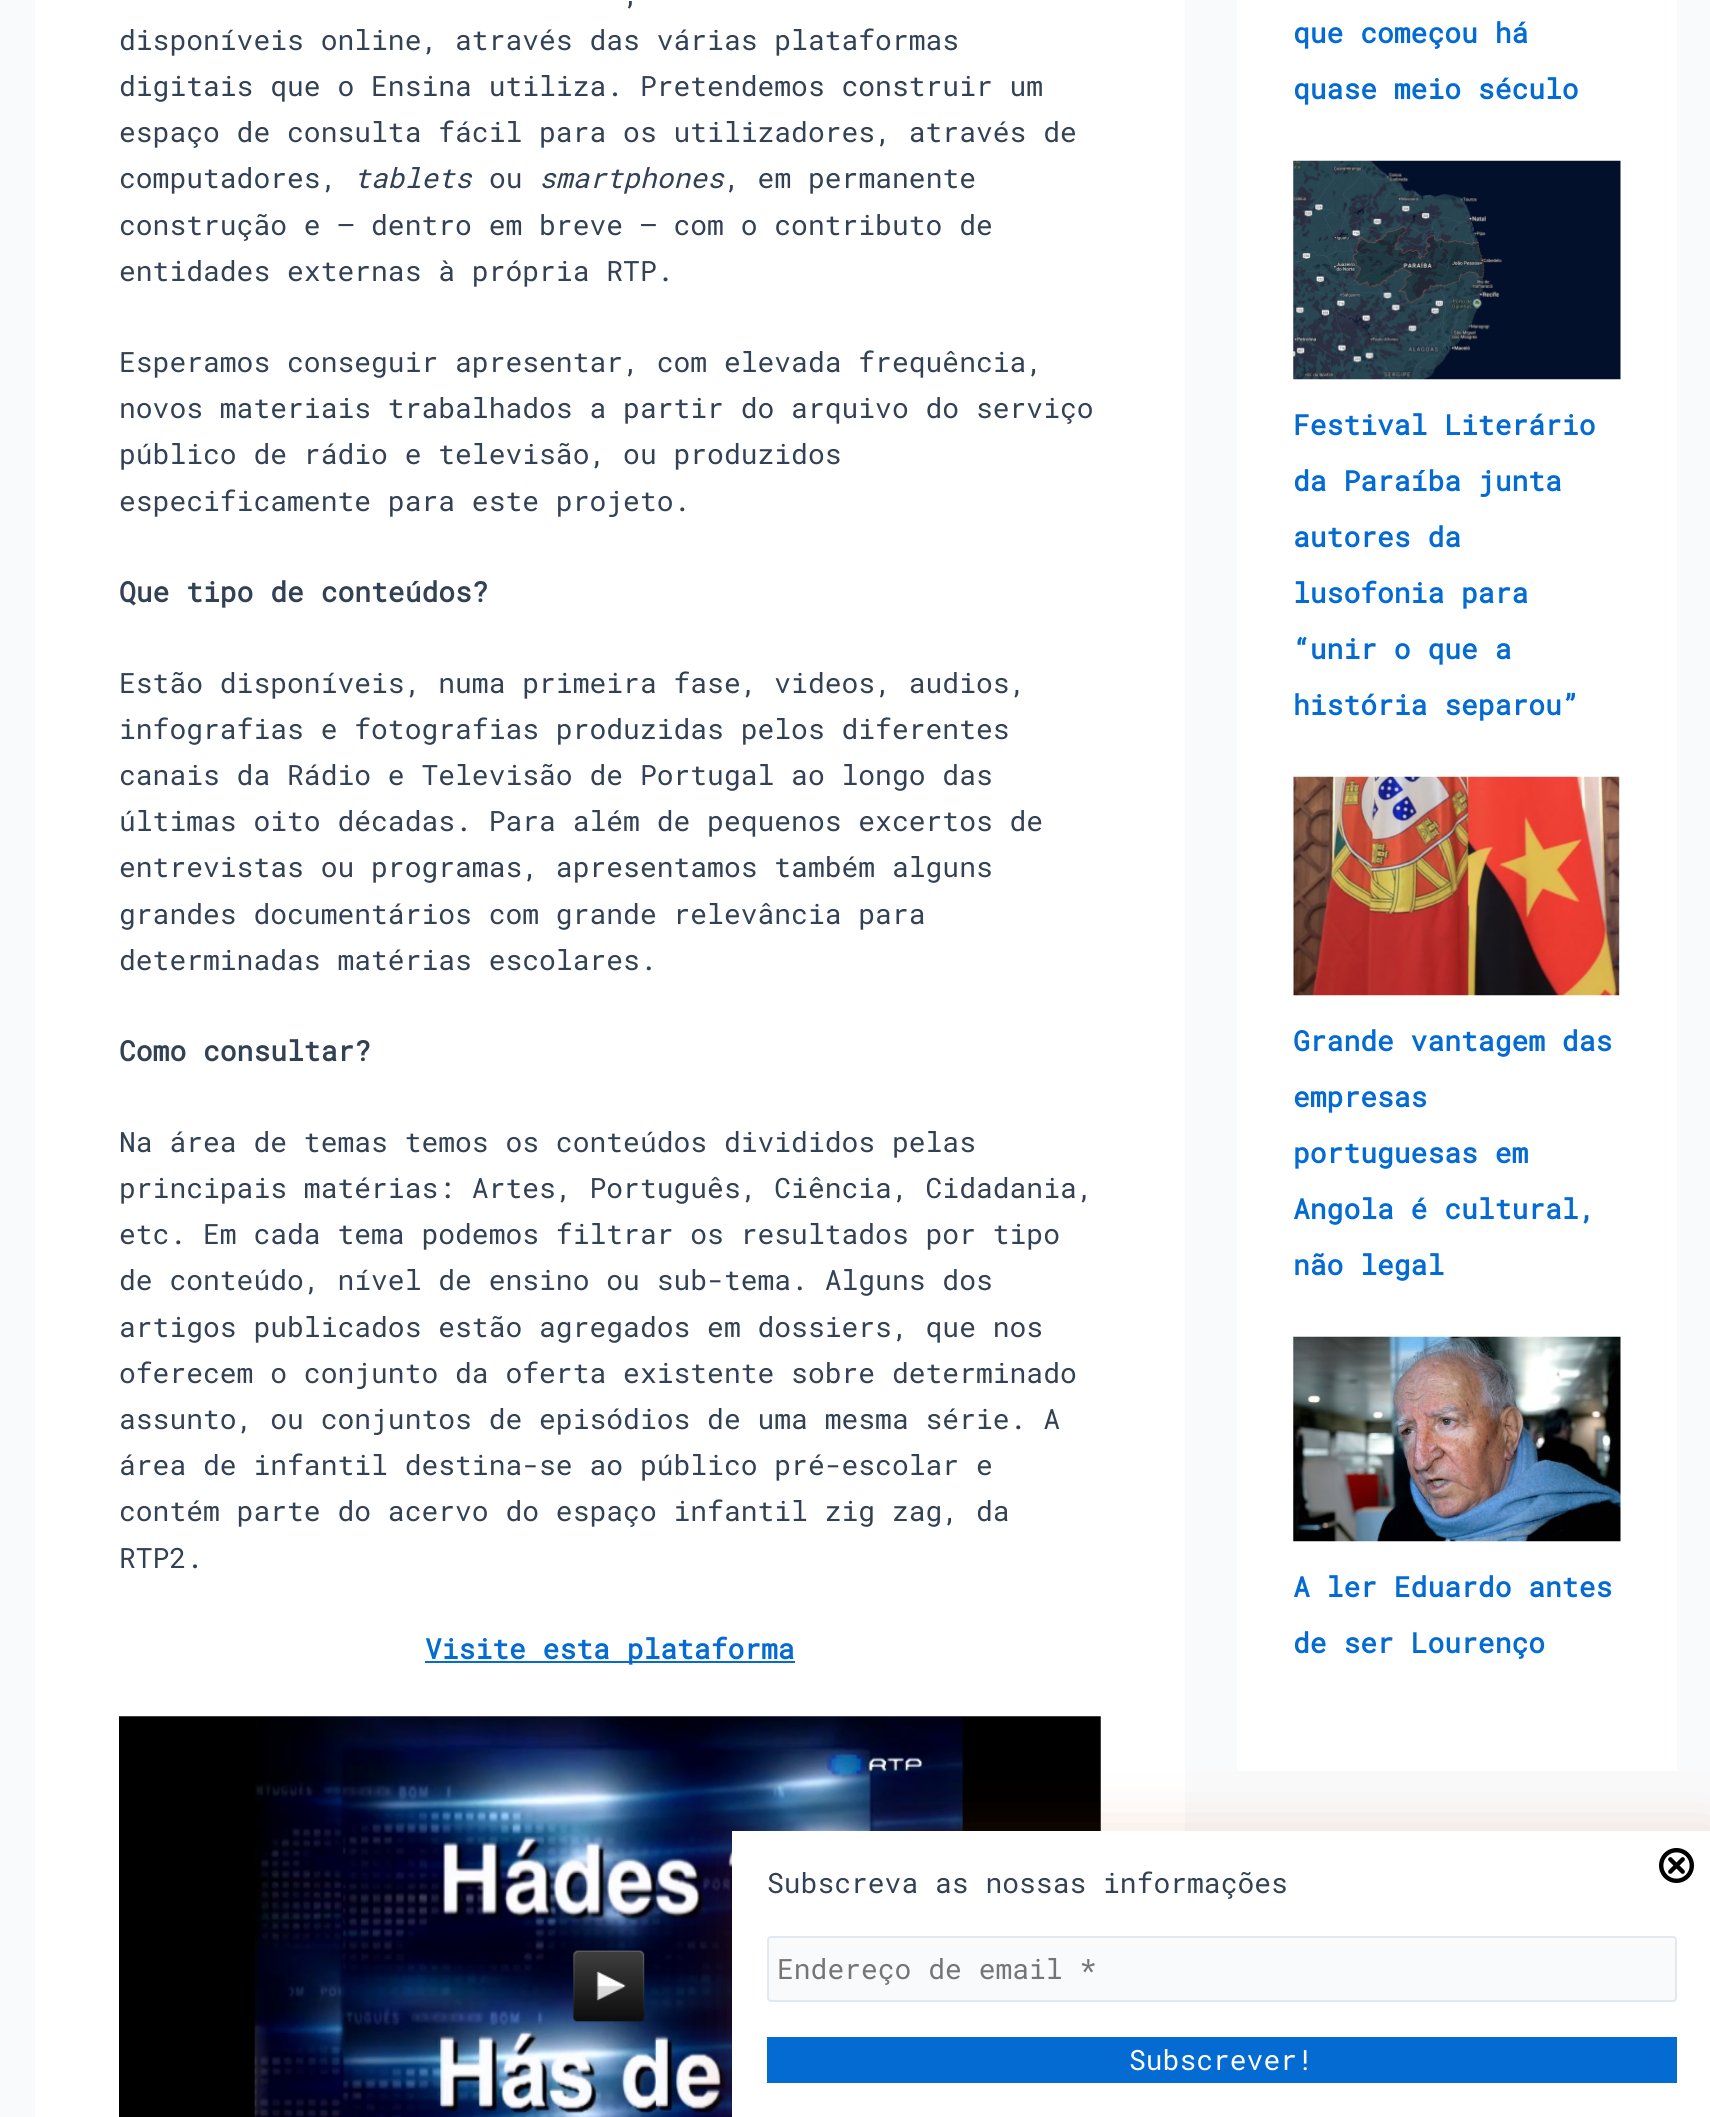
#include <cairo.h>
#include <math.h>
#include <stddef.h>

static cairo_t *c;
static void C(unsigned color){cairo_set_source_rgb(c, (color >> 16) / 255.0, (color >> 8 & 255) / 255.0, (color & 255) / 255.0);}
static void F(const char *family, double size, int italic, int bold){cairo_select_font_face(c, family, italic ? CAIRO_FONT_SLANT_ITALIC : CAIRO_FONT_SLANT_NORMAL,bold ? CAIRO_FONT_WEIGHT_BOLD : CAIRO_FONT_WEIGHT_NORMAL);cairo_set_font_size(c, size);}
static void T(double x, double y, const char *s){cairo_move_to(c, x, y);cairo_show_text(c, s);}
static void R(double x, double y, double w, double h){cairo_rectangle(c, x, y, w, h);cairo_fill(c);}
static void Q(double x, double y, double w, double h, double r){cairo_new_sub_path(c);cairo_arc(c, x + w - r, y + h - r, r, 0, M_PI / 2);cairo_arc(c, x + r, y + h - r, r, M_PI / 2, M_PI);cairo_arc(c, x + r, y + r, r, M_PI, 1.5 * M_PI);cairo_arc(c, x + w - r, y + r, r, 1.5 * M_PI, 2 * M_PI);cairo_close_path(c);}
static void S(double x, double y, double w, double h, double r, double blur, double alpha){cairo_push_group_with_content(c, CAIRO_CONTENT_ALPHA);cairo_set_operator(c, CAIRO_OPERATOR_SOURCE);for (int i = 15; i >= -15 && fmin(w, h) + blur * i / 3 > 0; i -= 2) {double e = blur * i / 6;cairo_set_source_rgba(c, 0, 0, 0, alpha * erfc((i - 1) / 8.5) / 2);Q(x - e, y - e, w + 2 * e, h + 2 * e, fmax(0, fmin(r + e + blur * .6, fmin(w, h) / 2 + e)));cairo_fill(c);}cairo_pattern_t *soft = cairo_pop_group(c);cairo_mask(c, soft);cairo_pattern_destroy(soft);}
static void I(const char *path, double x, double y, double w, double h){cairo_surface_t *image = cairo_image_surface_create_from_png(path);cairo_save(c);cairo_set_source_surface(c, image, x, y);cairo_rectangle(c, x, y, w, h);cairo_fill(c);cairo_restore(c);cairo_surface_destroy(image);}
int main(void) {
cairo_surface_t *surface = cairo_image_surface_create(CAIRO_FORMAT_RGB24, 1710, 2117);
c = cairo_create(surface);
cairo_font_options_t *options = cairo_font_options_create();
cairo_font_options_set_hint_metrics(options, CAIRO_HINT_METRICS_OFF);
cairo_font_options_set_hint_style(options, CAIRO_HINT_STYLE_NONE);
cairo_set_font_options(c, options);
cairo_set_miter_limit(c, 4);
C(0xf9fafb);
cairo_paint(c);
C(0xffffff);
R(35,0,1150,2117);
F("Roboto Mono",28,0,0);
C(0x334155);
T(623,4,",");
T(119,50,"disponíveis online, através das várias plataformas");
T(119,96,"digitais que o Ensina utiliza. Pretendemos construir um");
T(119,142,"espaço de consulta fácil para os utilizadores, através de");
T(119,188,"computadores,");
F("Roboto Mono",28,1,0);
T(354,188,"tablets");
F("Roboto Mono",28,0,0);
T(489,188,"ou");
F("Roboto Mono",28,1,0);
T(539,188,"smartphones");
F("Roboto Mono",28,0,0);
T(724,188,", em permanente");
T(119,235,"construção e – dentro em breve – com o contributo de");
T(119,281,"entidades externas à própria RTP.");
T(119,372,"Esperamos conseguir apresentar, com elevada frequência,");
T(119,418,"novos materiais trabalhados a partir do arquivo do serviço");
T(119,464,"público de rádio e televisão, ou produzidos");
T(119,511,"especificamente para este projeto.");
F("Roboto Mono",28,0,1);
T(119,602,"Que tipo de conteúdos?");
F("Roboto Mono",28,0,0);
T(119,693,"Estão disponíveis, numa primeira fase, videos, audios,");
T(119,739,"infografias e fotografias produzidas pelos diferentes");
T(119,785,"canais da Rádio e Televisão de Portugal ao longo das");
T(119,831,"últimas oito décadas. Para além de pequenos excertos de");
T(119,877,"entrevistas ou programas, apresentamos também alguns");
T(119,924,"grandes documentários com grande relevância para");
T(119,970,"determinadas matérias escolares.");
F("Roboto Mono",28,0,1);
T(119,1061,"Como consultar?");
F("Roboto Mono",28,0,0);
T(119,1152,"Na área de temas temos os conteúdos divididos pelas");
T(119,1198,"principais matérias: Artes, Português, Ciência, Cidadania,");
T(119,1244,"etc. Em cada tema podemos filtrar os resultados por tipo");
T(119,1290,"de conteúdo, nível de ensino ou sub-tema. Alguns dos");
T(119,1337,"artigos publicados estão agregados em dossiers, que nos");
T(119,1383,"oferecem o conjunto da oferta existente sobre determinado");
T(119,1429,"assunto, ou conjuntos de episódios de uma mesma série. A");
T(119,1475,"área de infantil destina-se ao público pré-escolar e");
T(119,1521,"contém parte do acervo do espaço infantil zig zag, da");
T(119,1568,"RTP2.");
C(0x046bd2);
R(425,1661,370,2);
F("Roboto Mono",28,0,1);
T(425,1659,"Visite esta plataforma");
I("1.png",119,1716,982,401);
C(0xffffff);
R(1237,0,440,1771);
C(0xc34102);
S(732,1838,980,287,0,30.5,.2);
C(0xffffff);
R(732,1831,978,286);
I("2.png",1659,1848,35,35);
F("Roboto Mono",28,0,0);
C(0x334155);
T(767,1893,"Subscreva as nossas informações");
C(0xf9fafb);
Q(768,1937,908,64,3);
cairo_fill_preserve(c);
C(0xe2e8f0);
cairo_stroke(c);
C(0x757575);
T(777,1979,"Endereço de email *");
C(0x046bd2);
R(767,2037,910,46);
C(0xffffff);
T(1129,2070,"Subscrever!");
F("Roboto Mono",28,0,1);
C(0x046bd2);
T(1293,43,"que começou há");
T(1293,99,"quase meio século");
I("3.png",1293,160,328,220);
T(1293,435,"Festival Literário");
T(1293,491,"da Paraíba junta");
T(1293,547,"autores da");
T(1293,603,"lusofonia para");
T(1293,659,"“unir o que a");
T(1293,715,"história separou”");
I("4.png",1293,776,328,220);
T(1293,1051,"Grande vantagem das");
T(1293,1107,"empresas");
T(1293,1163,"portuguesas em");
T(1293,1219,"Angola é cultural,");
T(1293,1275,"não legal");
I("5.png",1293,1336,328,206);
T(1293,1597,"A ler Eduardo antes");
T(1293,1653,"de ser Lourenço");
cairo_surface_write_to_png(surface, "o.png");
cairo_font_options_destroy(options);
cairo_destroy(c);
cairo_surface_destroy(surface);
return 0;
}
